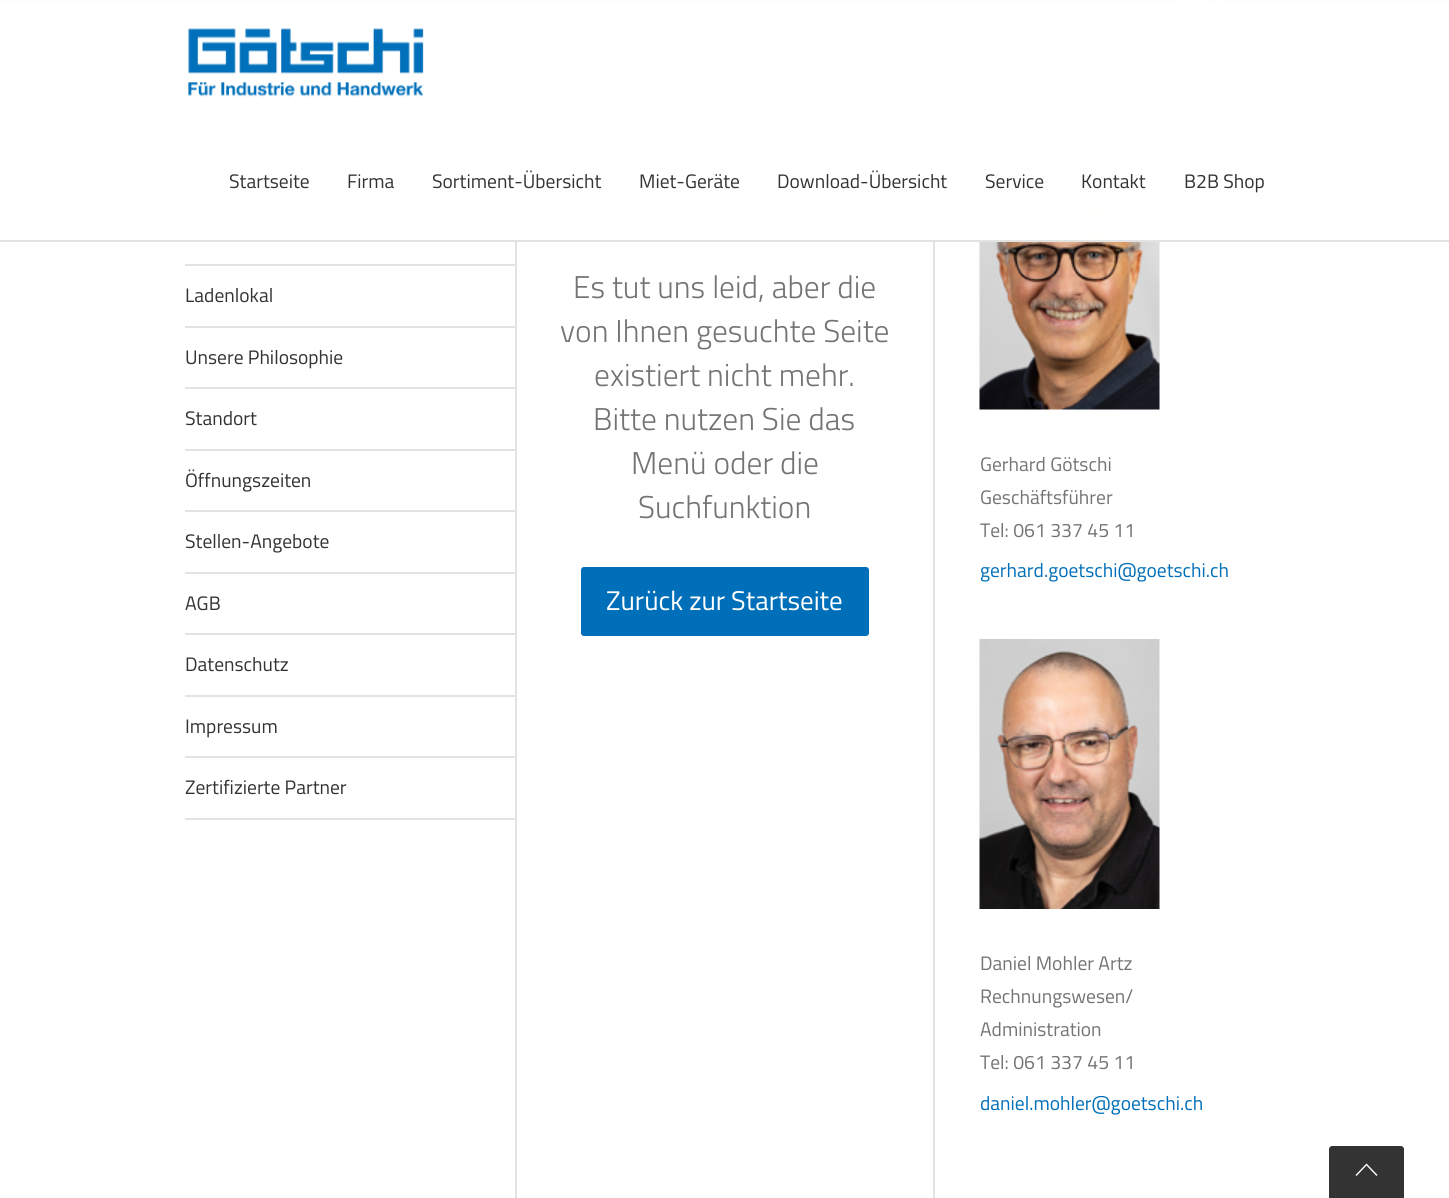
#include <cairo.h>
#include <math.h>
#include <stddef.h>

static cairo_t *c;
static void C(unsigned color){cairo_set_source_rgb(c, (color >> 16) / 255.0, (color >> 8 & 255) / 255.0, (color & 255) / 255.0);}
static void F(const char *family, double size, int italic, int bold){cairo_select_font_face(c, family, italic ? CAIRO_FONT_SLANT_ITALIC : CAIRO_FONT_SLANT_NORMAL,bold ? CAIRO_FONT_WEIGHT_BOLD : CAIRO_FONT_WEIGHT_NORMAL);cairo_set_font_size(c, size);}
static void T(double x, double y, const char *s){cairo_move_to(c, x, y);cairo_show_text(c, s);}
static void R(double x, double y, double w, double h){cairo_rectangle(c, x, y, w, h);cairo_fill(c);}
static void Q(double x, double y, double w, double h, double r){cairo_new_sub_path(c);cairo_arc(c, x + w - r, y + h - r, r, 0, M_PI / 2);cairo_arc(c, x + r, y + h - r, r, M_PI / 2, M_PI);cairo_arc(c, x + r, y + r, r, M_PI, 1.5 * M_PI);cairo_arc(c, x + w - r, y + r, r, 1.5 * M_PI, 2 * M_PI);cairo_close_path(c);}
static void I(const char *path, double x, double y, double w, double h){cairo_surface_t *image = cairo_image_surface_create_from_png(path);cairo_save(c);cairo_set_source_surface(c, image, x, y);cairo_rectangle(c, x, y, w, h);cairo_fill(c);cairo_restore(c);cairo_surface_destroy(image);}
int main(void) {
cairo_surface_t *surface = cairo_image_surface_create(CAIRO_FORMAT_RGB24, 1449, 1198);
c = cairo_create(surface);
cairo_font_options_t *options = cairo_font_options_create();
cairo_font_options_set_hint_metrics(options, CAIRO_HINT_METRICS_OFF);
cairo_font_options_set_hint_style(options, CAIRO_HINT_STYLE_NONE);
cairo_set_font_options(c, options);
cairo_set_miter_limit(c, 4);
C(0xffffff);
cairo_paint(c);
I("1.png",0,0,1449,3);
C(0xe3e3e3);
R(0,3,1449,2);
cairo_set_source_rgba(c,0.11,0.11,0.11,0.8);
R(0,0,1449,3);
C(0xe3e3e3);
R(185,80,330,2);
R(185,141,330,2);
R(185,203,330,2);
R(515,5,2,1193);
R(933,5,2,1193);
I("3.png",979,139,181,271);
cairo_set_source_rgba(c,1,1,1,0.99);
R(0,0,1449,240);
C(0xe3e3e3);
R(0,240,1449,2);
I("2.png",188,28,236,69);
F("Titillium Web",19.5,0,0);
C(0x333333);
T(229,188,"Startseite");
T(347,188,"Firma");
T(432,188,"Sortiment-Übersicht");
T(639,188,"Miet-Geräte");
T(777,188,"Download-Übersicht");
T(985,188,"Service");
T(1081,188,"Kontakt");
T(1184,188,"B2B Shop");
C(0xe3e3e3);
R(185,264,330,2);
C(0x333333);
T(185,302,"Ladenlokal");
C(0xe3e3e3);
R(185,326,330,2);
C(0x333333);
T(185,364,"Unsere Philosophie");
C(0xe3e3e3);
R(185,387,330,2);
C(0x333333);
T(185,425,"Standort");
C(0xe3e3e3);
R(185,449,330,2);
C(0x333333);
T(185,487,"Öffnungszeiten");
C(0xe3e3e3);
R(185,510,330,2);
C(0x333333);
T(185,548,"Stellen-Angebote");
C(0xe3e3e3);
R(185,572,330,2);
C(0x333333);
T(185,610,"AGB");
C(0xe3e3e3);
R(185,633,330,2);
C(0x333333);
T(185,671,"Datenschutz");
C(0xe3e3e3);
R(185,695,330,2);
C(0x333333);
T(185,733,"Impressum");
C(0xe3e3e3);
R(185,756,330,2);
R(185,818,330,2);
C(0x333333);
T(185,794,"Zertifizierte Partner");
F("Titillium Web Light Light",31.5,0,0);
C(0x747474);
T(573,298,"Es tut uns leid, aber die");
T(560,342,"von Ihnen gesuchte Seite");
T(594,386,"existiert nicht mehr.");
T(593,430,"Bitte nutzen Sie das");
T(631,474,"Menü oder die");
T(638,518,"Suchfunktion");
C(0x006fb9);
Q(582,568,286,67,2);
cairo_fill_preserve(c);
cairo_stroke(c);
F("Titillium Web",27,0,0);
C(0xffffff);
T(606,610,"Zurück zur Startseite");
F("Titillium Web",19.5,0,0);
C(0x747474);
T(980,471,"Gerhard Götschi");
T(980,504,"Geschäftsführer");
T(980,537,"Tel: 061 337 45 11");
C(0x006fb9);
T(980,577,"gerhard.goetschi@goetschi.ch");
I("4.png",979,639,181,270);
C(0x747474);
T(980,970,"Daniel Mohler Artz");
T(980,1003,"Rechnungswesen/");
T(980,1036,"Administration");
T(980,1069,"Tel: 061 337 45 11");
C(0x006fb9);
T(980,1110,"daniel.mohler@goetschi.ch");
C(0x333333);
cairo_new_path(c);
cairo_move_to(c,1332,1146);
cairo_line_to(c,1401,1146);
cairo_curve_to(c,1402.5,1146,1404,1147.5,1404,1149);
cairo_line_to(c,1404,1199);
cairo_line_to(c,1329,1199);
cairo_line_to(c,1329,1149);
cairo_curve_to(c,1329,1147.5,1330.5,1146,1332,1146);
cairo_close_path(c);
cairo_fill(c);
C(0xffffff);
cairo_new_path(c);
cairo_move_to(c,1377.5,1175);
cairo_line_to(c,1376.5,1176);
cairo_line_to(c,1366.5,1165.5);
cairo_line_to(c,1356.5,1176);
cairo_line_to(c,1355.5,1175);
cairo_line_to(c,1366.5,1163.5);
cairo_close_path(c);
cairo_fill(c);
cairo_surface_write_to_png(surface, "o.png");
cairo_font_options_destroy(options);
cairo_destroy(c);
cairo_surface_destroy(surface);
return 0;
}
